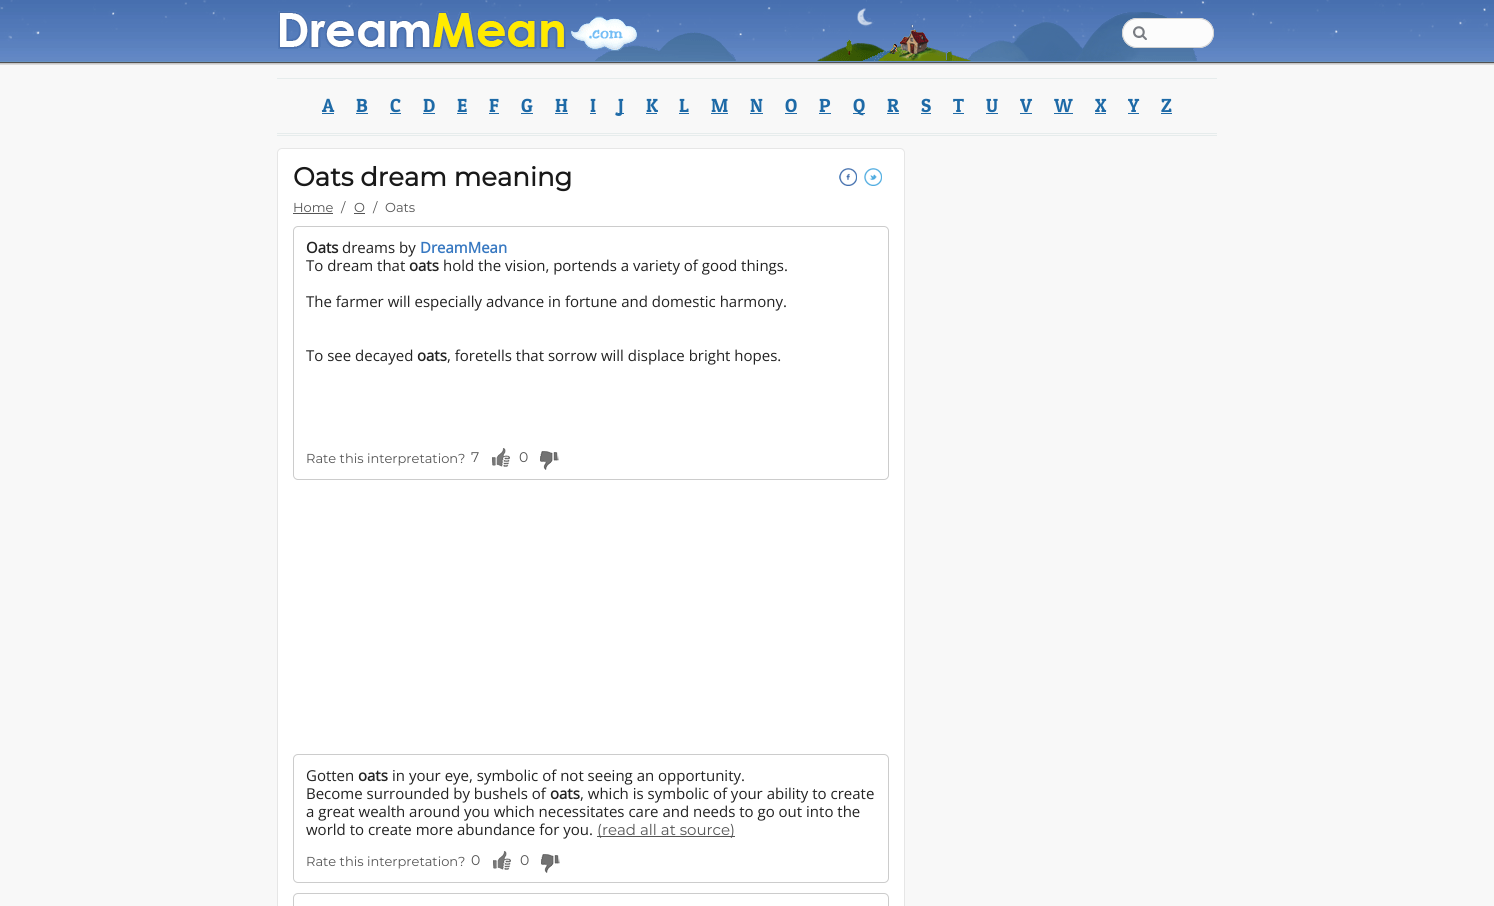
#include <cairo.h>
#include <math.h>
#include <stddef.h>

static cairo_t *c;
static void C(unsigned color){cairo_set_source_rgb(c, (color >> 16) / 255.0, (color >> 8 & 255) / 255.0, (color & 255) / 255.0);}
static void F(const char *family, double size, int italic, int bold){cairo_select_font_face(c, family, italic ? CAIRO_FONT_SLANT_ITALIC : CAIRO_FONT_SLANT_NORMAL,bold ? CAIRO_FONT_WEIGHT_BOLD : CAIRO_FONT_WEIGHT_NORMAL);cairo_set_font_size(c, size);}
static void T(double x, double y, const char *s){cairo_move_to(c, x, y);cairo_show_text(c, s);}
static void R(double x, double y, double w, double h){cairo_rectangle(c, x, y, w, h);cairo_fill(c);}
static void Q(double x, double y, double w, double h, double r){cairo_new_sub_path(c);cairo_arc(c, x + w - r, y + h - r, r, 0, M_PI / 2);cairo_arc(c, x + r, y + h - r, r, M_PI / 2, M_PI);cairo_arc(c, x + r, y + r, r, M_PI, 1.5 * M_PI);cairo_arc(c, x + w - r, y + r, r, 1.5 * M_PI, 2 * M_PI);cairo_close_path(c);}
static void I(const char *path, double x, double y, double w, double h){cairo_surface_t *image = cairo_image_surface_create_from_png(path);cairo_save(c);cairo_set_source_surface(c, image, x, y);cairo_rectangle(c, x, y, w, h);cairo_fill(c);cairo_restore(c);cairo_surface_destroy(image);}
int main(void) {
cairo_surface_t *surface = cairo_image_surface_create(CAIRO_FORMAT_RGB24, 1494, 906);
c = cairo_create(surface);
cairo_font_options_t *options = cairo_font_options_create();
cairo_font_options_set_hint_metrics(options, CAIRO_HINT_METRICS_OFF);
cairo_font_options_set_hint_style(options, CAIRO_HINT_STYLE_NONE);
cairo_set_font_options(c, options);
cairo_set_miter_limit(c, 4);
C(0xf8f8f8);
cairo_paint(c);
I("1.png",0,0,1494,65);
I("2.png",0,0,1489,41);
I("3.png",823,0,400,41);
I("4.png",278,11,458,50);
I("5.png",968,12,229,49);
I("6.png",817,8,154,53);
I("7.png",910,24,4,6);
C(0xfcfcfc);
Q(1122,18,92,30,15);
cairo_fill(c);
I("8.png",1133,26,14,14);
Q(1122.5,18.5,91,29,14.5);
C(0xd1d1d1);
cairo_set_line_width(c,1);
cairo_stroke(c);
I("9.png",866,51,24,10);
I("10.png",277,78,940,58);
F("Patua One",19,0,0);
C(0x1e6aa7);
T(322,112,"A");
R(322,113,12,1);
T(356,112,"B");
R(356,113,12,1);
T(390,112,"C");
R(390,113,11,1);
T(423,112,"D");
R(423,113,12,1);
T(457,112,"E");
R(457,113,10,1);
T(489,112,"F");
R(489,113,10,1);
T(521,112,"G");
R(521,113,12,1);
T(555,112,"H");
R(555,113,13,1);
T(590,112,"I");
R(590,113,6,1);
R(618,113,6,1);
T(618,112,"J");
T(646,112,"K");
R(646,113,11,1);
T(679,112,"L");
R(679,113,10,1);
T(711,112,"M");
R(711,113,17,1);
T(750,112,"N");
R(750,113,13,1);
T(785,112,"O");
R(785,113,12,1);
T(819,112,"P");
R(819,113,12,1);
R(853,113,12,1);
T(853,112,"Q");
T(887,112,"R");
R(887,113,12,1);
T(921,112,"S");
R(921,113,10,1);
T(953,112,"T");
R(953,113,11,1);
T(986,112,"U");
R(986,113,12,1);
T(1020,112,"V");
R(1020,113,12,1);
T(1054,112,"W");
R(1054,113,19,1);
T(1095,112,"X");
R(1095,113,11,1);
T(1128,112,"Y");
R(1128,113,11,1);
T(1161,112,"Z");
R(1161,113,11,1);
C(0xffffff);
Q(277.5,148.5,627,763,4.5);
cairo_fill_preserve(c);
C(0xe6e6e6);
cairo_stroke(c);
F("Montserrat",26,0,1);
C(0x191919);
T(293,186,"Oats dream meaning");
I("11.png",839,168,18,18);
I("12.png",864,168,18,18);
F("Montserrat Thin",13,0,0);
C(0x555555);
T(293,212,"Home");
R(293,213,40,1);
T(341,212,"/");
T(354,212,"O");
R(354,213,11,1);
T(373,212,"/");
T(385,212,"Oats");
Q(293.5,226.5,595,253,4.5);
C(0xcccccc);
cairo_stroke(c);
F("Open Sans",15,0,1);
C(0x222222);
T(306,253,"Oats");
F("Open Sans",15,0,0);
T(342,253,"dreams by");
F("Open Sans",15,0,1);
C(0x3778c1);
T(420,253,"DreamMean");
F("Open Sans",15,0,0);
C(0x222222);
T(306,271,"To dream that");
F("Open Sans",15,0,1);
T(409,271,"oats");
F("Open Sans",15,0,0);
T(443,271,"hold the vision, portends a variety of good things.");
T(306,307,"The farmer will especially advance in fortune and domestic harmony.");
T(306,361,"To see decayed");
F("Open Sans",15,0,1);
T(417,361,"oats");
F("Open Sans",15,0,0);
T(447,361,", foretells that sorrow will displace bright hopes.");
F("Montserrat Thin",13,0,0);
C(0x555555);
T(306,463,"Rate this interpretation?");
F("Montserrat Thin",14,0,0);
T(471,462,"7");
I("13.png",492,448,18,19);
T(519,462,"0");
I("14.png",540,451,19,19);
Q(293.5,754.5,595,128,4.5);
C(0xcccccc);
cairo_stroke(c);
F("Open Sans",15,0,0);
C(0x222222);
T(306,781,"Gotten");
F("Open Sans",15,0,1);
T(358,781,"oats");
F("Open Sans",15,0,0);
T(392,781,"in your eye, symbolic of not seeing an opportunity.");
T(306,799,"Become surrounded by bushels of");
F("Open Sans",15,0,1);
T(550,799,"oats");
F("Open Sans",15,0,0);
T(580,799,", which is symbolic of your ability to create");
T(306,817,"a great wealth around you which necessitates care and needs to go out into the");
T(306,835,"world to create more abundance for you.");
C(0x555555);
R(597,836,138,1);
F("Montserrat Thin",15,0,0);
T(597,835,"(read all at source)");
F("Montserrat Thin",13,0,0);
T(306,866,"Rate this interpretation?");
F("Montserrat Thin",14,0,0);
T(471,865,"0");
I("13.png",493,851,18,19);
T(520,865,"0");
I("14.png",541,854,19,19);
Q(293.5,893.5,595,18,4.5);
C(0xcccccc);
cairo_stroke(c);
cairo_surface_write_to_png(surface, "o.png");
cairo_font_options_destroy(options);
cairo_destroy(c);
cairo_surface_destroy(surface);
return 0;
}
